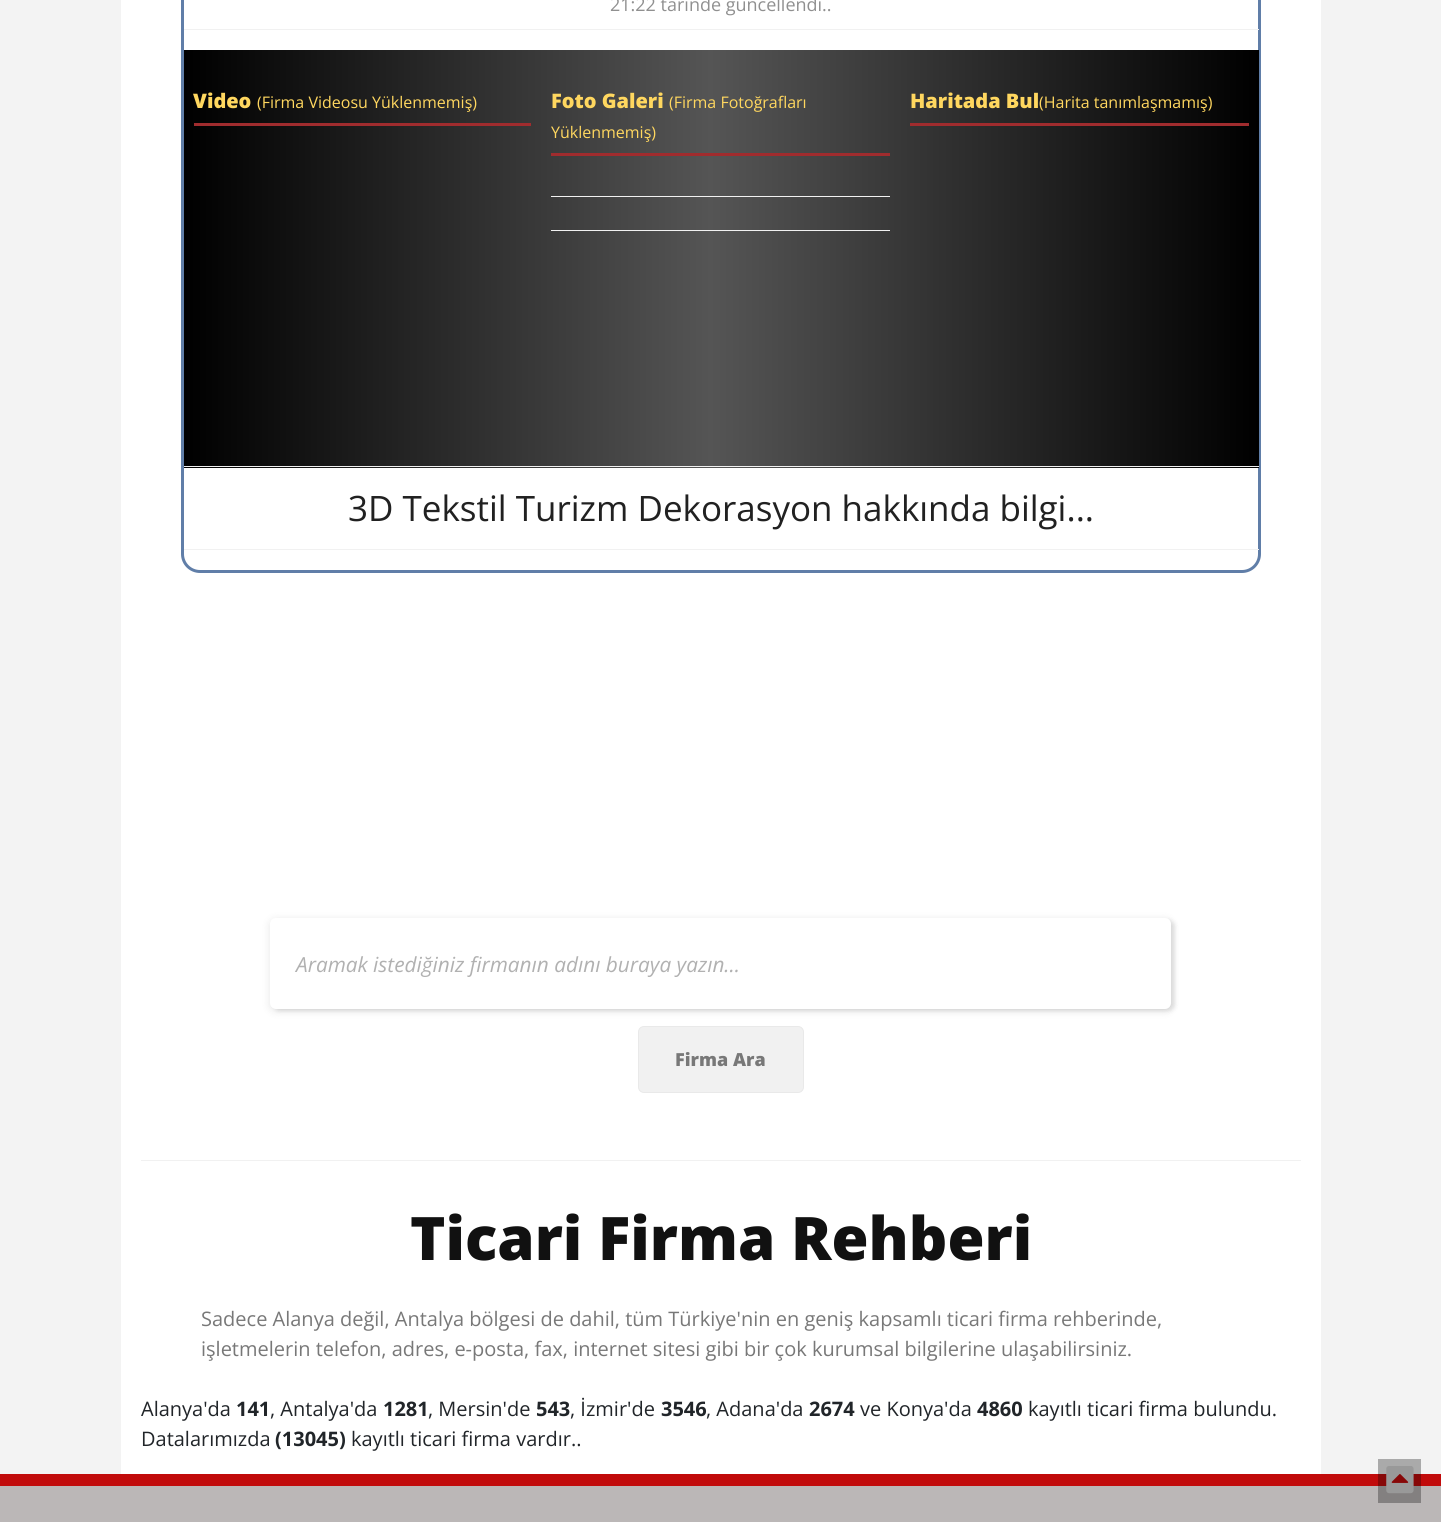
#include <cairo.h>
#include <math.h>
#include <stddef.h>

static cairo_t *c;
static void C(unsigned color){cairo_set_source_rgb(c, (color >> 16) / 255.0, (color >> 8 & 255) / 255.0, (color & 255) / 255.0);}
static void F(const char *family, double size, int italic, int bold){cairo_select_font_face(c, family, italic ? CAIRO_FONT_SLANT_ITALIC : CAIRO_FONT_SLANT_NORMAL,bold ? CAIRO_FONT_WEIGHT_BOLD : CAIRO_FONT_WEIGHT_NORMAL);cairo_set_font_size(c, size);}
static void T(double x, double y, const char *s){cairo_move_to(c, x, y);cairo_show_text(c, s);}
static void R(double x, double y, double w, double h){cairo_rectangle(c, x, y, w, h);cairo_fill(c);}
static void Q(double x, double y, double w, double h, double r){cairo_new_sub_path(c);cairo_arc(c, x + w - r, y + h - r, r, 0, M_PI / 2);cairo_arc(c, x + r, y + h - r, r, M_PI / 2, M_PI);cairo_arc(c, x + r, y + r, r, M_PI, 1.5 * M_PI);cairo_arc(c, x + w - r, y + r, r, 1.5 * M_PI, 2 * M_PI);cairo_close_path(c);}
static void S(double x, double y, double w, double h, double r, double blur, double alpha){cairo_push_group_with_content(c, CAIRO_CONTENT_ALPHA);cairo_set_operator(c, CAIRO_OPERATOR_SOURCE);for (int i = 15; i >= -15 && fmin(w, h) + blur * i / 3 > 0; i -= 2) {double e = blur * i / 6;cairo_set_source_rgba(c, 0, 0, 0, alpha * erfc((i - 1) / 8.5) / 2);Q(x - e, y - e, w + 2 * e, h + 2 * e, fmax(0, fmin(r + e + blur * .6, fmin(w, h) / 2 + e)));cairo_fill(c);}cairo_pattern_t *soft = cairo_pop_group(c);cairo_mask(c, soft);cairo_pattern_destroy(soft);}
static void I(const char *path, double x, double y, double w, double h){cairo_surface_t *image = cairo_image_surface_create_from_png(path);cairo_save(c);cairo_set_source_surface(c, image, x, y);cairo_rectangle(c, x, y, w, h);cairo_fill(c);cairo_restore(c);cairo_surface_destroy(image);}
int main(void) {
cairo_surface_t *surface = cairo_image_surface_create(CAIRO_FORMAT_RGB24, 1441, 1522);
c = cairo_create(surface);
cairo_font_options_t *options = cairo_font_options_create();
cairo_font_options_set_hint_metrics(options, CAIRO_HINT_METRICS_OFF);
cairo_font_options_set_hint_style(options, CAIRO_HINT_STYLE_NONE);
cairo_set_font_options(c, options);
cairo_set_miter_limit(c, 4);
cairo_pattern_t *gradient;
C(0xf3f3f3);
cairo_paint(c);
C(0xaaaaaa);
R(1378,1459,43,15);
C(0xffffff);
R(121,0,1200,1474);
Q(182.5,-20.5,1077,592,17.5);
C(0x607ea8);
cairo_set_line_width(c,3);
cairo_stroke(c);
C(0xf1f1f1);
R(184,29,1075,1);
F("Open Sans",18,0,0);
C(0x909090);
T(610,11,"21:22 tarinde güncellendi..");
gradient = cairo_pattern_create_linear(184,258,1259,258);
cairo_pattern_add_color_stop_rgba(gradient,0,0,0,0,1);
cairo_pattern_add_color_stop_rgba(gradient,.49,0.333,0.333,0.333,1);
cairo_pattern_add_color_stop_rgba(gradient,1,0,0,0,1);
cairo_set_source(c,gradient);
cairo_pattern_destroy(gradient);
R(184,50,1075,418);
C(0xf1f1f1);
R(184,466,1075,1);
C(0xa02c2e);
R(194,123,337,3);
F("Open Sans ExtraBold",20,0,0);
C(0xffd75f);
T(193,108,"Video");
F("Open Sans",16,0,0);
T(257,108,"(Firma Videosu Yüklenmemiş)");
C(0xa02c2e);
R(551,153,339,3);
F("Open Sans ExtraBold",20,0,0);
C(0xffd75f);
T(551,108,"Foto Galeri");
F("Open Sans",16,0,0);
T(669,108,"(Firma Fotoğrafları");
T(551,138,"Yüklenmemiş)");
C(0xf1f1f1);
R(551,196,339,1);
R(551,230,339,1);
C(0xa02c2e);
R(910,123,339,3);
F("Open Sans ExtraBold",20,0,0);
C(0xffd75f);
T(910,108,"Haritada Bul");
F("Open Sans",16,0,0);
T(1039,108,"(Harita tanımlaşmamış)");
C(0xf1f1f1);
R(184,549,1075,1);
F("Open Sans",35,0,0);
C(0x212121);
T(348,521,"3D Tekstil Turizm Dekorasyon hakkında bilgi...");
C(0xf1f1f1);
R(141,1160,1160,1);
C(0x000000);
S(270,920,901,91,6,4.5,.1);
S(274,920,901,91,6,2,.1);
C(0xffffff);
Q(270,918,901,91,6);
cairo_fill(c);
F("Open Sans",20.8,1,0);
C(0xb1b1b1);
T(296,972,"Aramak istediğiniz firmanın adını buraya yazın...");
C(0xf1f1f1);
Q(638.5,1026.5,165,66,5.5);
cairo_fill_preserve(c);
C(0xe9e9e9);
cairo_set_line_width(c,1);
cairo_stroke(c);
F("Open Sans ExtraBold",18,0,0);
C(0x787878);
T(675,1066,"Firma Ara");
F("Open Sans ExtraBold",60,0,0);
C(0x111111);
T(410,1260,"Ticari Firma Rehberi");
F("Open Sans",20,0,0);
C(0x787878);
T(201,1326,"Sadece Alanya değil, Antalya bölgesi de dahil, tüm Türkiye'nin en geniş kapsamlı ticari firma rehberinde,");
T(201,1356,"işletmelerin telefon, adres, e-posta, fax, internet sitesi gibi bir çok kurumsal bilgilerine ulaşabilirsiniz.");
C(0x212529);
T(141,1416,"Alanya'da");
F("Open Sans",20,0,1);
T(236,1416,"141");
F("Open Sans",20,0,0);
T(270,1416,", Antalya'da");
F("Open Sans",20,0,1);
T(383,1416,"1281");
F("Open Sans",20,0,0);
T(428,1416,", Mersin'de");
F("Open Sans",20,0,1);
T(536,1416,"543");
F("Open Sans",20,0,0);
T(570,1416,", İzmir'de");
F("Open Sans",20,0,1);
T(661,1416,"3546");
F("Open Sans",20,0,0);
T(706,1416,", Adana'da");
F("Open Sans",20,0,1);
T(809,1416,"2674");
F("Open Sans",20,0,0);
T(860,1416,"ve Konya'da");
F("Open Sans",20,0,1);
T(977,1416,"4860");
F("Open Sans",20,0,0);
T(1028,1416,"kayıtlı ticari firma bulundu.");
T(141,1446,"Datalarımızda");
F("Open Sans",20,0,1);
T(275,1446,"(13045)");
F("Open Sans",20,0,0);
T(351,1446,"kayıtlı ticari firma vardır..");
C(0xbbb7b7);
R(0,1486,1441,36);
C(0x838080);
R(1378,1486,43,17);
C(0xc10b0b);
R(0,1474,1441,12);
C(0x870808);
R(1378,1474,43,12);
I("1.png",1386,1466,28,28);
cairo_surface_write_to_png(surface, "o.png");
cairo_font_options_destroy(options);
cairo_destroy(c);
cairo_surface_destroy(surface);
return 0;
}
